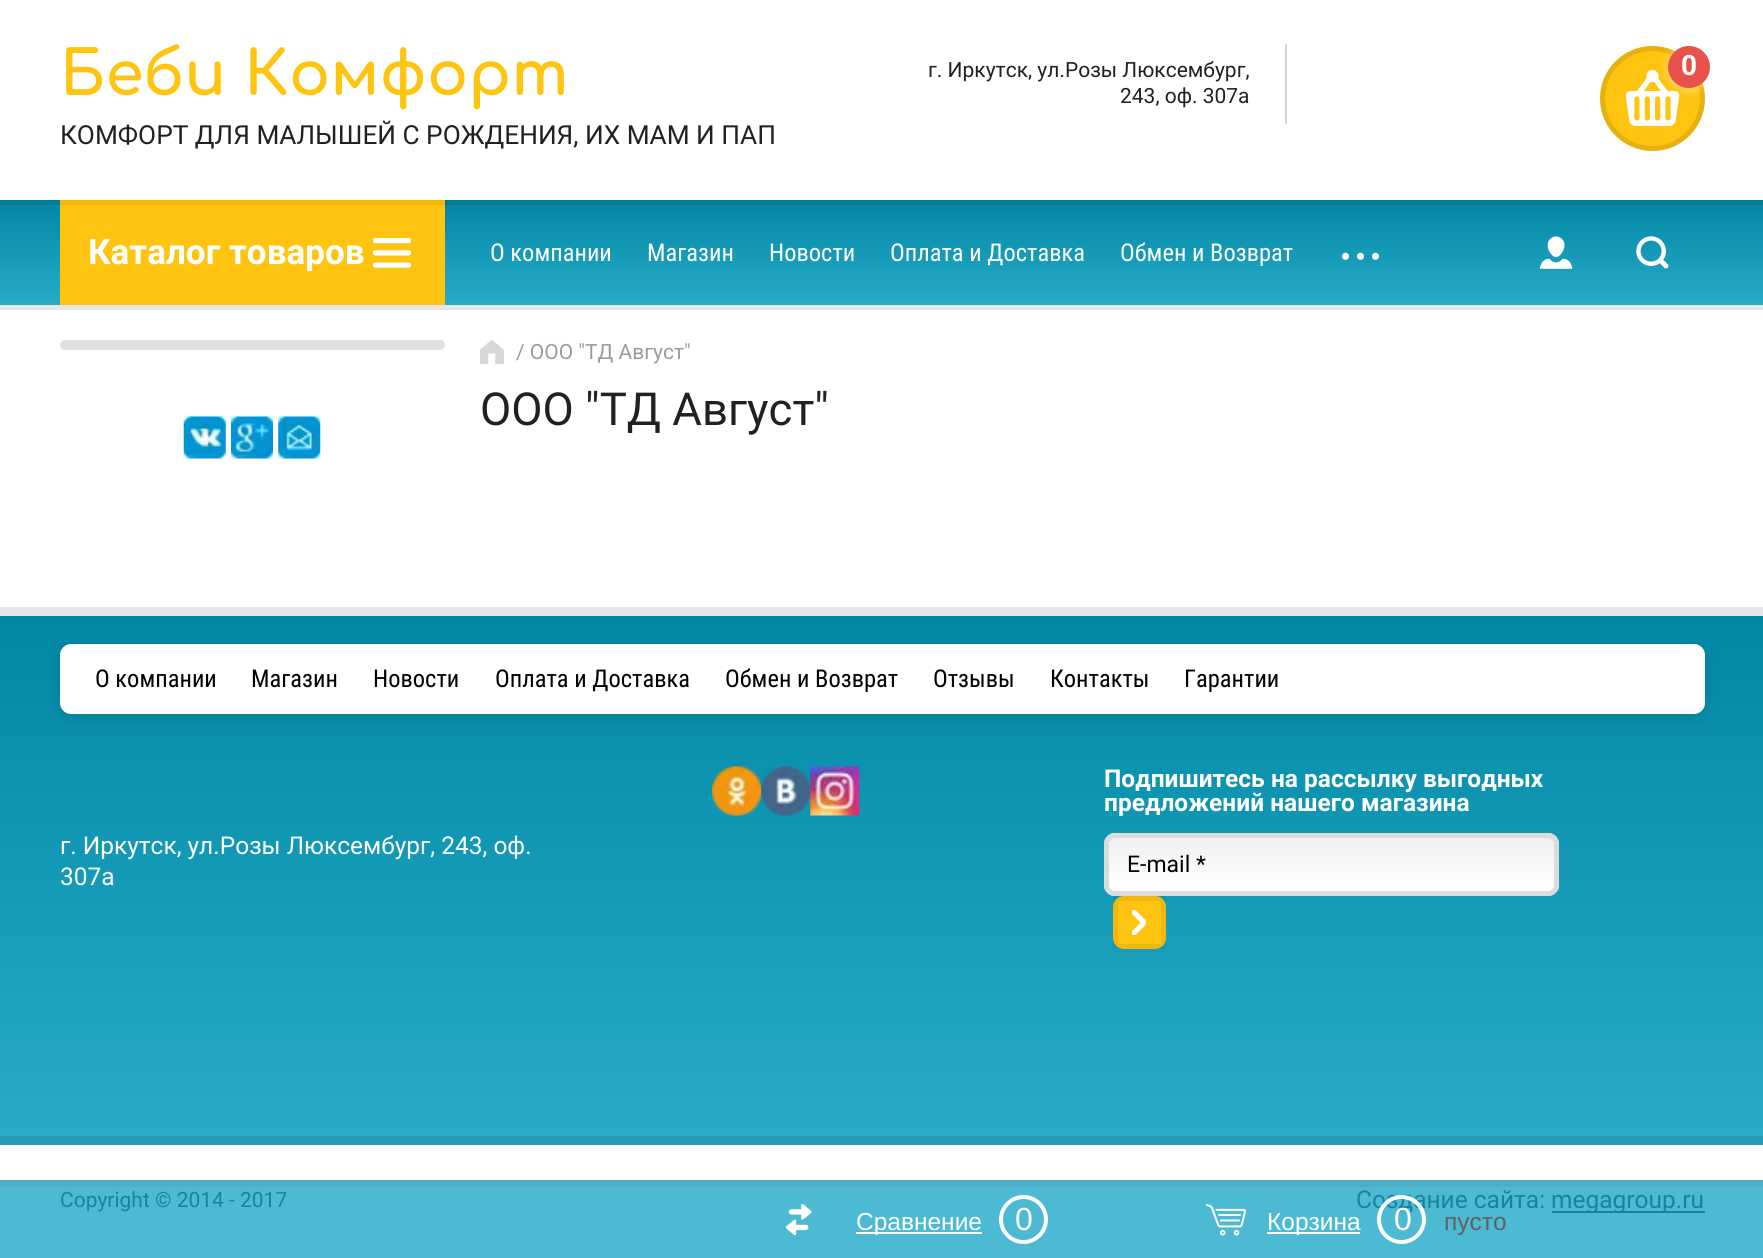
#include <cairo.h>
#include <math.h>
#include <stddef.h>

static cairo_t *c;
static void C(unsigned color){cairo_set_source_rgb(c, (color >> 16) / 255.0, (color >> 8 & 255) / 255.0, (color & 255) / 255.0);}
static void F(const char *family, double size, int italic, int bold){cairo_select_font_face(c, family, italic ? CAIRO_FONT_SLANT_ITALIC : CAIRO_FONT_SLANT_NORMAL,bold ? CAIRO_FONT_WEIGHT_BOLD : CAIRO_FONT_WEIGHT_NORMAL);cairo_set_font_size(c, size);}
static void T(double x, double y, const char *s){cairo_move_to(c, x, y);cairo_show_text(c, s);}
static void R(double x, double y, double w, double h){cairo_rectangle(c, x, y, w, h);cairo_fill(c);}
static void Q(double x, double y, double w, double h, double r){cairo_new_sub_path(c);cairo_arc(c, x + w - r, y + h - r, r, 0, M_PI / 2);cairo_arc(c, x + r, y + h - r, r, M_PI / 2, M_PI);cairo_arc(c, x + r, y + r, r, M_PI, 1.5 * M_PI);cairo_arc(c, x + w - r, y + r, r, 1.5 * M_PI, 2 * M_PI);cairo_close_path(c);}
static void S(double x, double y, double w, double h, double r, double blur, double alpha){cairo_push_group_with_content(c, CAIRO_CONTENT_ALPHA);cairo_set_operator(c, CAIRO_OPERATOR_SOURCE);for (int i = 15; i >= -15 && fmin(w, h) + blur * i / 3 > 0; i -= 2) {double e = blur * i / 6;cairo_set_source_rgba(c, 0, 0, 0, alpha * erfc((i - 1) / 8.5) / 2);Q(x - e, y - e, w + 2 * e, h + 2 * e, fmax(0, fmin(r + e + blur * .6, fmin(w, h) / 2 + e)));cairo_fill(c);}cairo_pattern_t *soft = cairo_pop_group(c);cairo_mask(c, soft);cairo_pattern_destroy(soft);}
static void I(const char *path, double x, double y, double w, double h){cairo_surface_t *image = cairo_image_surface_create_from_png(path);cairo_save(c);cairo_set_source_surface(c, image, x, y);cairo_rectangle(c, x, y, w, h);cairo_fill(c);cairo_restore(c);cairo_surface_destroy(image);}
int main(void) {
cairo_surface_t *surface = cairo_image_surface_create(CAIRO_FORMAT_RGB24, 1763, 1258);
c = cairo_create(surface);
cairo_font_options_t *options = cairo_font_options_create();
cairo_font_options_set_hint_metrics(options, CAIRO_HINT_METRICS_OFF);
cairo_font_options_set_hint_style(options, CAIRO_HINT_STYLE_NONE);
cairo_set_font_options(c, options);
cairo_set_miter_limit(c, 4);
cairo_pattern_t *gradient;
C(0xffffff);
cairo_paint(c);
C(0x4dbad3);
R(0,1187,1763,71);
F("Comfortaa",61.25,0,1);
C(0xffc410);
T(60,95,"Беби Комфорт");
F("Roboto",26.25,0,0);
C(0x212121);
T(60,144,"КОМФОРТ ДЛЯ МАЛЫШЕЙ С РОЖДЕНИЯ, ИХ МАМ И ПАП");
F("Roboto",21,0,0);
T(928,77,"г. Иркутск, ул.Розы Люксембург,");
T(1120,103,"243, оф. 307а");
C(0xd3d3d3);
R(1285,44,2,80);
C(0xffc410);
cairo_new_path(c);
cairo_arc(c,1652.5,98.5,52.5,0,2 * M_PI);
cairo_fill(c);
cairo_arc(c,1652.5,98.5,50,0,2 * M_PI);
cairo_set_source_rgba(c,0,0,0,0.1);
cairo_set_line_width(c,5);
cairo_stroke(c);
I("1.png",1626,70,54,56);
C(0xffffff);
S(1668,47,42,42,21,4.5,.5);
C(0xe9524b);
cairo_arc(c,1689,67,21,0,2 * M_PI);
cairo_fill(c);
F("Roboto",28,0,1);
C(0xffffff);
T(1681,75,"0");
C(0xe6e6e6);
R(0,305,1763,5);
gradient = cairo_pattern_create_linear(882,305,882,200);
cairo_pattern_add_color_stop_rgba(gradient,0,0.153,0.671,0.788,1);
cairo_pattern_add_color_stop_rgba(gradient,1,0.004,0.529,0.647,1);
cairo_set_source(c,gradient);
cairo_pattern_destroy(gradient);
R(0,205,1763,100);
C(0x027a95);
R(0,200,1763,5);
C(0xffc410);
R(60,205,385,100);
C(0xf0b80f);
R(60,200,385,5);
F("Roboto",35,0,1);
C(0xffffff);
T(88,264,"Каталог товаров");
I("2.png",373,238,38,30);
F("Roboto Condensed",24.5,0,0);
T(490,261,"О компании");
T(647,261,"Магазин");
T(769,261,"Новости");
T(890,261,"Оплата и Доставка");
T(1120,261,"Обмен и Возврат");
F("Liberation Serif",60,0,0);
T(1338,259,"...");
I("3.png",1539,236,34,33);
I("4.png",1636,236,33,33);
C(0xe0e0e0);
Q(60,340,385,10,5);
cairo_fill(c);
I("5.png",183,416,43,43);
I("6.png",231,416,42,43);
I("7.png",278,416,43,43);
I("8.png",480,340,24,24);
F("Roboto",21,0,0);
C(0x9b9b9b);
T(516,359,"/ ООО \"ТД Август\"");
F("Roboto",45.5,0,0);
C(0x212121);
T(480,425,"ООО \"ТД Август\"");
C(0x4dafc5);
R(0,1180,1763,7);
I("9.png",786,1204,26,32);
C(0xffffff);
R(856,1232,126,2);
F("Liberation Sans",24.5,0,0);
T(856,1230,"Сравнение");
cairo_new_path(c);
cairo_arc(c,1023.5,1219.5,22.5,0,2 * M_PI);
cairo_set_line_width(c,4);
cairo_stroke(c);
F("Liberation Sans",32,0,0);
T(1015,1230,"0");
I("10.png",1206,1204,40,32);
R(1267,1232,93,2);
F("Liberation Sans",24.5,0,0);
T(1267,1230,"Корзина");
F("Roboto",24.5,0,0);
C(0x17849d);
T(1356,1208,"Создание сайта:");
cairo_new_path(c);
cairo_arc(c,1401.5,1219.5,22.5,0,2 * M_PI);
C(0xffffff);
cairo_stroke(c);
F("Liberation Sans",32,0,0);
T(1394,1230,"0");
F("Liberation Sans",24.5,0,0);
C(0x606060);
T(1444,1230,"пусто");
C(0xe6e6e6);
R(0,607,1763,9);
gradient = cairo_pattern_create_linear(882,1145,882,616);
cairo_pattern_add_color_stop_rgba(gradient,0,0.153,0.678,0.788,1);
cairo_pattern_add_color_stop_rgba(gradient,1,0.004,0.533,0.647,1);
cairo_set_source(c,gradient);
cairo_pattern_destroy(gradient);
R(0,616,1763,520);
C(0x239bb5);
R(0,1136,1763,9);
C(0x000000);
S(60,648,1645,70,11,8,.14);
C(0xffffff);
Q(60,644,1645,70,11);
cairo_fill(c);
F("Roboto Condensed",24.5,0,0);
C(0x000000);
T(95,687,"О компании");
T(251,687,"Магазин");
T(373,687,"Новости");
T(495,687,"Оплата и Доставка");
T(725,687,"Обмен и Возврат");
T(933,687,"Отзывы");
T(1050,687,"Контакты");
T(1184,687,"Гарантии");
F("Roboto",24.5,0,0);
C(0xffffff);
T(60,854,"г. Иркутск, ул.Розы Люксембург, 243, оф.");
T(60,885,"307а");
I("11.png",712,766,50,50);
I("12.png",761,766,50,50);
I("13.png",810,766,50,50);
F("Roboto",24.5,0,1);
T(1104,787,"Подпишитесь на рассылку выгодных");
T(1104,811,"предложений нашего магазина");
Q(1104,833,455,63,11);
cairo_fill(c);
gradient = cairo_pattern_create_linear(1332,891,1332,838);
cairo_pattern_add_color_stop_rgba(gradient,0,1,1,1,.06);
cairo_pattern_add_color_stop_rgba(gradient,1,0,0,0,.06);
cairo_set_source(c,gradient);
cairo_pattern_destroy(gradient);
R(1104,838,455,53);
Q(1106.5,835.5,450,58,8.5);
C(0xdcdcdc);
cairo_set_line_width(c,5);
cairo_stroke(c);
F("Roboto",23,0,0);
C(0x000000);
T(1127,872,"E-mail *");
C(0xffc410);
Q(1113,896,53,53,11);
cairo_fill(c);
cairo_rectangle(c,1115.5,898.5,48,48);
cairo_set_source_rgba(c,0,0,0,0.06);
cairo_stroke(c);
I("14.png",1132,910,14,25);
F("Roboto",21,0,0);
C(0x17849d);
T(60,1207,"Copyright © 2014 - 2017");
R(1552,1211,153,2);
F("Roboto",24.5,0,0);
T(1551,1208,"megagroup.ru");
cairo_surface_write_to_png(surface, "o.png");
cairo_font_options_destroy(options);
cairo_destroy(c);
cairo_surface_destroy(surface);
return 0;
}
